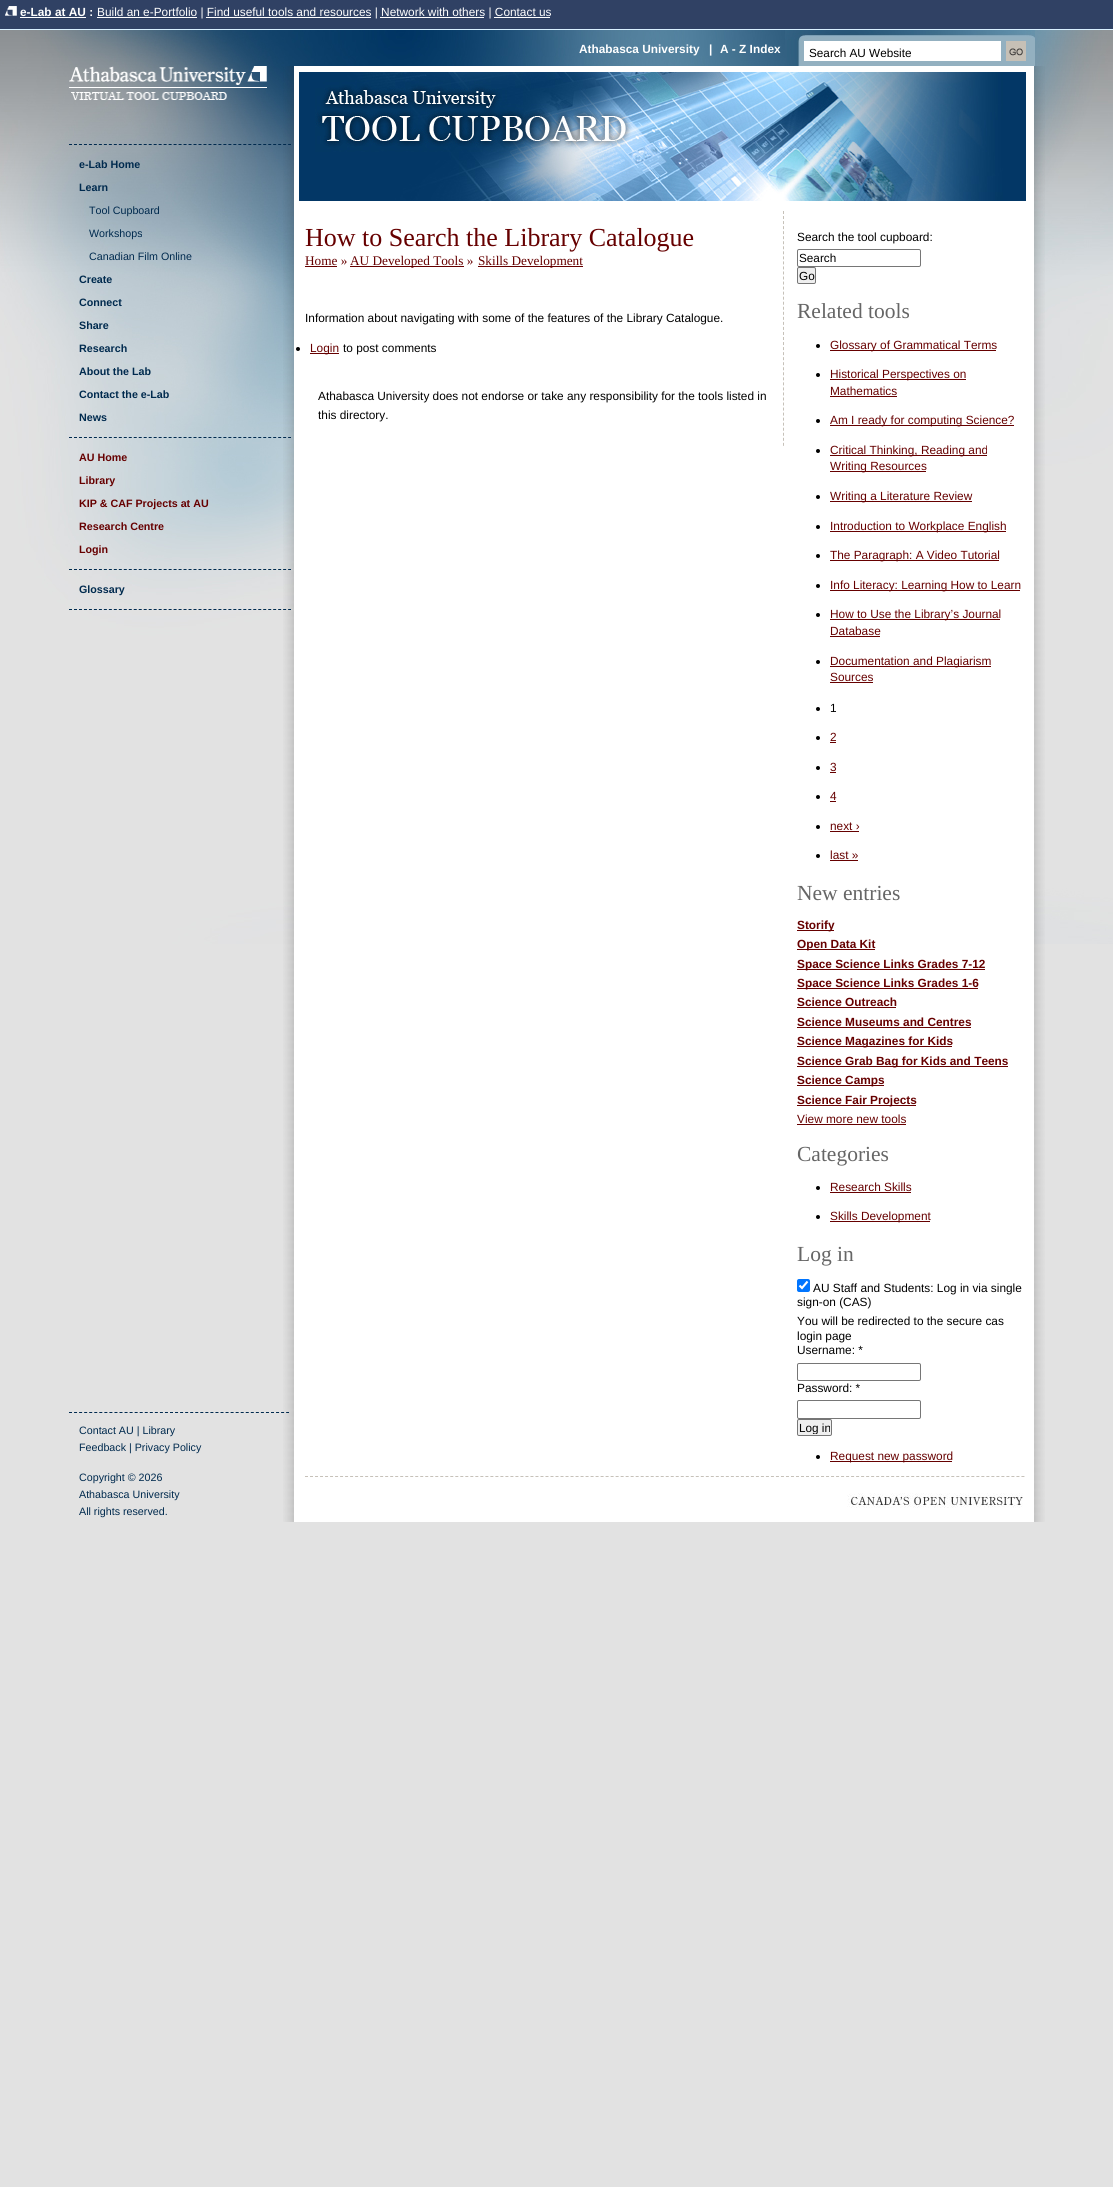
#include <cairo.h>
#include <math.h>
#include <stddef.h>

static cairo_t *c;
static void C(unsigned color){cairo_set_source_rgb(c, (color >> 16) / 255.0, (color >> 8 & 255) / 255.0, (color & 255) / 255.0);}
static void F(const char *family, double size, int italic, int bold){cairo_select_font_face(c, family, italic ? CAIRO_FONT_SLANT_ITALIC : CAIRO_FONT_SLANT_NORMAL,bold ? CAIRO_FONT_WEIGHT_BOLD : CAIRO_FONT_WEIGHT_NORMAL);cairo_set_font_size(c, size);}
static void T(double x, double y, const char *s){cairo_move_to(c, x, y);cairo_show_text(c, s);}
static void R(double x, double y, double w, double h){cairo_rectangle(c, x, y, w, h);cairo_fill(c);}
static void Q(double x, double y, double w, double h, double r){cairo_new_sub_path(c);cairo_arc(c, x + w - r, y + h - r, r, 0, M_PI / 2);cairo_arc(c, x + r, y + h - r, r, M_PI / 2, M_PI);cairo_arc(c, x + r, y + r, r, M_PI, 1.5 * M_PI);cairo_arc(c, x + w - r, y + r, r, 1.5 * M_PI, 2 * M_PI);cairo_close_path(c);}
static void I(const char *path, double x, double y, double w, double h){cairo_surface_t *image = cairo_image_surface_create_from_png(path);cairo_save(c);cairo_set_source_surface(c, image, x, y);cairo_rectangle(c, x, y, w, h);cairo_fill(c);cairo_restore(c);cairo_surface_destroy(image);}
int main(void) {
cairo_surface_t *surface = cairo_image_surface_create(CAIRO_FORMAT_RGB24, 1113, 2187);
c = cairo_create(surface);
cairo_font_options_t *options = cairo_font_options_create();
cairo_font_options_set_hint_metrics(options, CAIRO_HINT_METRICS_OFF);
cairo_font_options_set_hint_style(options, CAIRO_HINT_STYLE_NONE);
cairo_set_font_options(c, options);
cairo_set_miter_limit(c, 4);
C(0xe2e2e2);
cairo_paint(c);
I("1.png",0,30,1113,914);
C(0x304164);
R(0,0,1113,29);
C(0xd9f0ff);
R(0,29,1113,1);
I("2.png",5,6,12,10);
F("Liberation Sans",11.85,0,1);
C(0xffffff);
T(20,16,"e-Lab at AU :");
R(20,17,66,1);
R(97,17,100,1);
F("Liberation Sans",11.85,0,0);
T(97,16,"Build an e-Portfolio | Find useful tools and resources | Network with others | Contact us");
R(206,17,165,1);
R(380,17,104,1);
R(494,17,56,1);
F("Liberation Sans",11.85,0,1);
T(579,53,"Athabasca University");
T(709,53,"|");
T(720,53,"A - Z Index");
I("3.png",785,30,250,36);
R(804,41,197,20);
F("Liberation Sans",11.75,0,0);
C(0x000000);
T(809,57,"Search AU Website");
I("4.png",1006,41,20,20);
I("5.png",283,66,762,1456);
I("6.png",69,66,198,34);
cairo_new_path(c);
cairo_move_to(c,69,144.5);
cairo_line_to(c,291,144.5);
C(0x002a4e);
cairo_set_line_width(c,1);
cairo_set_dash(c,(double[]){3,1.98},2,0);
cairo_stroke(c);
cairo_new_path(c);
cairo_move_to(c,69,437.5);
cairo_line_to(c,291,437.5);
cairo_stroke(c);
F("Liberation Sans",10.7,0,1);
T(79,168,"e-Lab Home");
T(79,191,"Learn");
F("Liberation Sans",10.7,0,0);
T(89,214,"Tool Cupboard");
T(89,237,"Workshops");
T(89,260,"Canadian Film Online");
F("Liberation Sans",10.7,0,1);
T(79,283,"Create");
T(79,306,"Connect");
T(79,329,"Share");
T(79,352,"Research");
T(79,375,"About the Lab");
T(79,398,"Contact the e-Lab");
T(79,421,"News");
cairo_new_path(c);
cairo_move_to(c,69,569.5);
cairo_line_to(c,291,569.5);
cairo_stroke(c);
C(0x660000);
T(79,461,"AU Home");
T(79,484,"Library");
T(79,507,"KIP & CAF Projects at AU");
T(79,530,"Research Centre");
T(79,553,"Login");
cairo_new_path(c);
cairo_move_to(c,69,609.5);
cairo_line_to(c,291,609.5);
C(0x002a4e);
cairo_stroke(c);
T(79,593,"Glossary");
I("7.png",299,72,727,129);
cairo_new_path(c);
cairo_move_to(c,783.5,211);
cairo_line_to(c,783.5,446);
C(0xc6c1b9);
cairo_set_dash(c,(double[]){3,2.04},2,0);
cairo_stroke(c);
F("Liberation Serif",26,0,0);
C(0x660000);
T(305,246,"How to Search the Library Catalogue");
F("Liberation Serif",13.25,0,0);
T(305,265,"Home »");
R(305,266,32,1);
R(350,266,114,1);
T(350,265,"AU Developed Tools »");
R(478,266,105,1);
T(478,265,"Skills Development");
F("Liberation Sans",11.85,0,0);
C(0x000000);
T(305,322,"Information about navigating with some of the features of the Library Catalogue.");
cairo_new_path(c);
cairo_arc(c,298,349,2,0,2 * M_PI);
cairo_fill(c);
C(0x660000);
R(310,353,29,1);
T(310,352,"Login");
C(0x000000);
T(343,352,"to post comments");
T(318,400,"Athabasca University does not endorse or take any responsibility for the tools listed in");
T(318,419,"this directory.");
T(797,241,"Search the tool cupboard:");
Q(797.5,249.5,123,17,1.5);
C(0x767676);
cairo_set_dash(c,NULL,0,0);
cairo_stroke(c);
F("Liberation Sans",11.75,0,0);
C(0x000000);
T(799,262,"Search");
C(0xefefef);
Q(797.5,267.5,18,16,1.5);
cairo_fill_preserve(c);
C(0x767676);
cairo_stroke(c);
C(0x000000);
T(799,280,"Go");
F("Liberation Serif",21.5,0,0);
C(0x666666);
T(797,318,"Related tools");
C(0x000000);
cairo_new_path(c);
cairo_arc(c,818,346,2,0,2 * M_PI);
cairo_fill(c);
C(0x660000);
R(830,350,166,1);
F("Liberation Sans",11.85,0,0);
T(830,349,"Glossary of Grammatical Terms");
C(0x000000);
cairo_new_path(c);
cairo_arc(c,818,375,2,0,2 * M_PI);
cairo_fill(c);
C(0x660000);
R(830,379,136,1);
T(830,378,"Historical Perspectives on");
T(830,395,"Mathematics");
R(830,396,67,1);
C(0x000000);
cairo_new_path(c);
cairo_arc(c,818,421,2,0,2 * M_PI);
cairo_fill(c);
C(0x660000);
R(830,425,184,1);
T(830,424,"Am I ready for computing Science?");
C(0x000000);
cairo_new_path(c);
cairo_arc(c,818,451,2,0,2 * M_PI);
cairo_fill(c);
C(0x660000);
R(830,455,157,1);
T(830,454,"Critical Thinking, Reading and");
R(830,471,96,1);
T(830,470,"Writing Resources");
C(0x000000);
cairo_new_path(c);
cairo_arc(c,818,497,2,0,2 * M_PI);
cairo_fill(c);
C(0x660000);
R(830,501,142,1);
T(830,500,"Writing a Literature Review");
C(0x000000);
cairo_new_path(c);
cairo_arc(c,818,527,2,0,2 * M_PI);
cairo_fill(c);
C(0x660000);
R(830,531,176,1);
T(830,530,"Introduction to Workplace English");
C(0x000000);
cairo_new_path(c);
cairo_arc(c,818,556,2,0,2 * M_PI);
cairo_fill(c);
C(0x660000);
R(830,560,169,1);
T(830,559,"The Paragraph: A Video Tutorial");
C(0x000000);
cairo_new_path(c);
cairo_arc(c,818,586,2,0,2 * M_PI);
cairo_fill(c);
C(0x660000);
R(830,590,190,1);
T(830,589,"Info Literacy: Learning How to Learn");
C(0x000000);
cairo_new_path(c);
cairo_arc(c,818,615,2,0,2 * M_PI);
cairo_fill(c);
C(0x660000);
R(830,619,170,1);
T(830,618,"How to Use the Library’s Journal");
T(830,635,"Database");
R(830,636,50,1);
C(0x000000);
cairo_new_path(c);
cairo_arc(c,818,662,2,0,2 * M_PI);
cairo_fill(c);
C(0x660000);
R(830,666,161,1);
T(830,665,"Documentation and Plagiarism");
T(830,681,"Sources");
R(830,682,43,1);
C(0x000000);
cairo_new_path(c);
cairo_arc(c,818,709,2,0,2 * M_PI);
cairo_fill(c);
T(830,712,"1");
cairo_new_path(c);
cairo_arc(c,818,738,2,0,2 * M_PI);
cairo_fill(c);
C(0x660000);
T(830,741,"2");
R(830,742,6,1);
C(0x000000);
cairo_new_path(c);
cairo_arc(c,818,768,2,0,2 * M_PI);
cairo_fill(c);
C(0x660000);
T(830,771,"3");
R(830,772,6,1);
C(0x000000);
cairo_new_path(c);
cairo_arc(c,818,797,2,0,2 * M_PI);
cairo_fill(c);
C(0x660000);
T(830,800,"4");
R(830,801,6,1);
C(0x000000);
cairo_new_path(c);
cairo_arc(c,818,827,2,0,2 * M_PI);
cairo_fill(c);
C(0x660000);
T(830,830,"next ›");
R(830,831,29,1);
C(0x000000);
cairo_new_path(c);
cairo_arc(c,818,856,2,0,2 * M_PI);
cairo_fill(c);
C(0x660000);
T(830,859,"last »");
R(830,860,28,1);
F("Liberation Serif",21.5,0,0);
C(0x666666);
T(797,900,"New entries");
C(0x660000);
R(797,930,37,1);
F("Liberation Sans",11.85,0,1);
T(797,929,"Storify");
R(797,949,78,1);
T(797,948,"Open Data Kit");
R(797,969,188,1);
T(797,968,"Space Science Links Grades 7-12");
R(797,988,181,1);
T(797,987,"Space Science Links Grades 1-6");
T(797,1006,"Science Outreach");
R(797,1007,99,1);
T(797,1026,"Science Museums and Centres");
R(797,1027,174,1);
R(797,1046,155,1);
T(797,1045,"Science Magazines for Kids");
R(797,1066,211,1);
T(797,1065,"Science Grab Bag for Kids and Teens");
R(797,1085,87,1);
T(797,1084,"Science Camps");
R(797,1105,119,1);
T(797,1104,"Science Fair Projects");
F("Liberation Sans",11.85,0,0);
T(797,1123,"View more new tools");
R(797,1124,109,1);
F("Liberation Serif",21.5,0,0);
C(0x666666);
T(797,1161,"Categories");
C(0x000000);
cairo_new_path(c);
cairo_arc(c,818,1188,2,0,2 * M_PI);
cairo_fill(c);
F("Liberation Sans",11.85,0,0);
C(0x660000);
T(830,1191,"Research Skills");
R(830,1192,81,1);
C(0x000000);
cairo_new_path(c);
cairo_arc(c,818,1217,2,0,2 * M_PI);
cairo_fill(c);
C(0x660000);
R(830,1221,100,1);
T(830,1220,"Skills Development");
F("Liberation Serif",21.5,0,0);
C(0x666666);
T(797,1261,"Log in");
C(0x0075ff);
Q(797,1279,13,13,2);
cairo_fill(c);
cairo_new_path(c);
cairo_move_to(c,799.5,1285.5);
cairo_line_to(c,802,1288);
cairo_line_to(c,807.5,1281.5);
C(0xffffff);
cairo_set_line_width(c,2.1);
cairo_stroke(c);
F("Liberation Sans",11.85,0,0);
C(0x000000);
T(813,1292,"AU Staff and Students: Log in via single");
T(797,1306,"sign-on (CAS)");
T(797,1325,"You will be redirected to the secure cas");
T(797,1340,"login page");
T(797,1354,"Username: *");
Q(797.5,1363.5,123,17,1.5);
C(0x767676);
cairo_set_line_width(c,1);
cairo_stroke(c);
C(0x000000);
T(797,1392,"Password: *");
Q(797.5,1400.5,123,18,1.5);
C(0x767676);
cairo_stroke(c);
C(0xefefef);
Q(797.5,1419.5,34,16,1.5);
cairo_fill_preserve(c);
C(0x767676);
cairo_stroke(c);
cairo_save(c);
cairo_rectangle(c,799,1421,31,13);
cairo_clip(c);
F("Liberation Sans",11.75,0,0);
C(0x000000);
T(799,1432,"Log in");
cairo_restore(c);
C(0x000000);
cairo_new_path(c);
cairo_arc(c,818,1457,2,0,2 * M_PI);
cairo_fill(c);
C(0x660000);
R(830,1461,122,1);
T(830,1460,"Request new password");
cairo_new_path(c);
cairo_move_to(c,69,1412.5);
cairo_line_to(c,289,1412.5);
C(0x002a4e);
cairo_set_dash(c,(double[]){3,2.05},2,0);
cairo_stroke(c);
F("Liberation Sans",10.7,0,0);
T(79,1434,"Contact AU | Library");
T(79,1451,"Feedback | Privacy Policy");
T(79,1481,"Copyright © 2026");
T(79,1498,"Athabasca University");
T(79,1515,"All rights reserved.");
cairo_new_path(c);
cairo_move_to(c,305,1476.5);
cairo_line_to(c,1025,1476.5);
C(0xc6c1b9);
cairo_set_dash(c,(double[]){3,2.01},2,0);
cairo_stroke(c);
I("8.png",847,1493,176,15);
cairo_surface_write_to_png(surface, "o.png");
cairo_font_options_destroy(options);
cairo_destroy(c);
cairo_surface_destroy(surface);
return 0;
}
